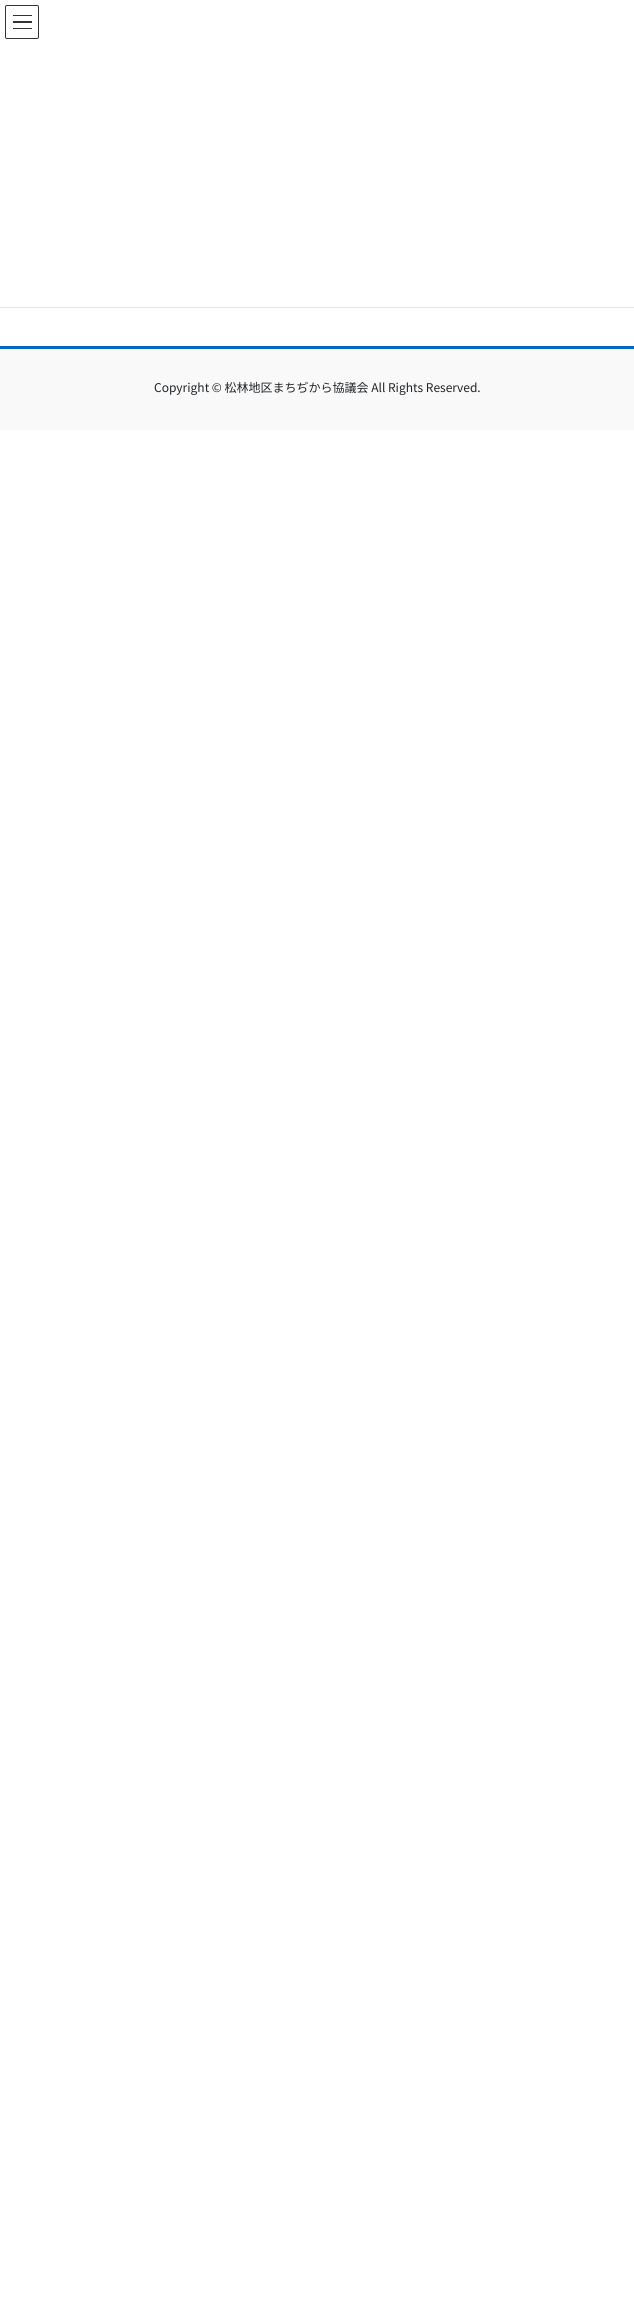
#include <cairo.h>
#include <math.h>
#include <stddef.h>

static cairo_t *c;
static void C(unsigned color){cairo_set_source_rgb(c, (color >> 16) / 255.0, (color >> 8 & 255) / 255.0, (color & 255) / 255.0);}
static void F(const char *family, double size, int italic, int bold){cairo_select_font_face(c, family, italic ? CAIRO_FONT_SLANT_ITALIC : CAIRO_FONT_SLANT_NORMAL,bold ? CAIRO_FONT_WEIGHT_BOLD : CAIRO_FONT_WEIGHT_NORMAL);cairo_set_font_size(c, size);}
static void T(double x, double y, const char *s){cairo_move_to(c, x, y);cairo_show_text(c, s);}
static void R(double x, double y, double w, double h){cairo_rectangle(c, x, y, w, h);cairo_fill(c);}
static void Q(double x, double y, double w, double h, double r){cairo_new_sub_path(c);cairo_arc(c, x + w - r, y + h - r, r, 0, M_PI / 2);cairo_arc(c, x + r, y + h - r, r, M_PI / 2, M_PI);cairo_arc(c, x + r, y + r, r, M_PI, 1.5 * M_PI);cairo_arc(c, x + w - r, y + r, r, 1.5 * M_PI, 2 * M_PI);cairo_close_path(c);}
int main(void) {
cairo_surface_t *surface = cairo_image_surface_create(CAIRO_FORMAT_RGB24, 634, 2308);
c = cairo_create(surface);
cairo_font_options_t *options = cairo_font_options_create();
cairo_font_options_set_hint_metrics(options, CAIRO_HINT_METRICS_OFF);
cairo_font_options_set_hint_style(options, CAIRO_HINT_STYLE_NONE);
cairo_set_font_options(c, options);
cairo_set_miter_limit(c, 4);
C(0xffffff);
cairo_paint(c);
C(0x333333);
R(13,15,19,1);
R(13,21,19,2);
R(13,28,19,1);
Q(5.5,5.5,33,33,1.5);
cairo_set_line_width(c,1);
cairo_stroke(c);
C(0xe5e5e5);
R(0,307,634,1);
C(0xf9f9f9);
R(0,349,634,81);
C(0x0066bf);
R(0,346,634,3);
F("Noto Sans JP",12,0,0);
C(0x212529);
T(154,392,"Copyright © 松林地区まちぢから協議会 All Rights Reserved.");
cairo_surface_write_to_png(surface, "o.png");
cairo_font_options_destroy(options);
cairo_destroy(c);
cairo_surface_destroy(surface);
return 0;
}
